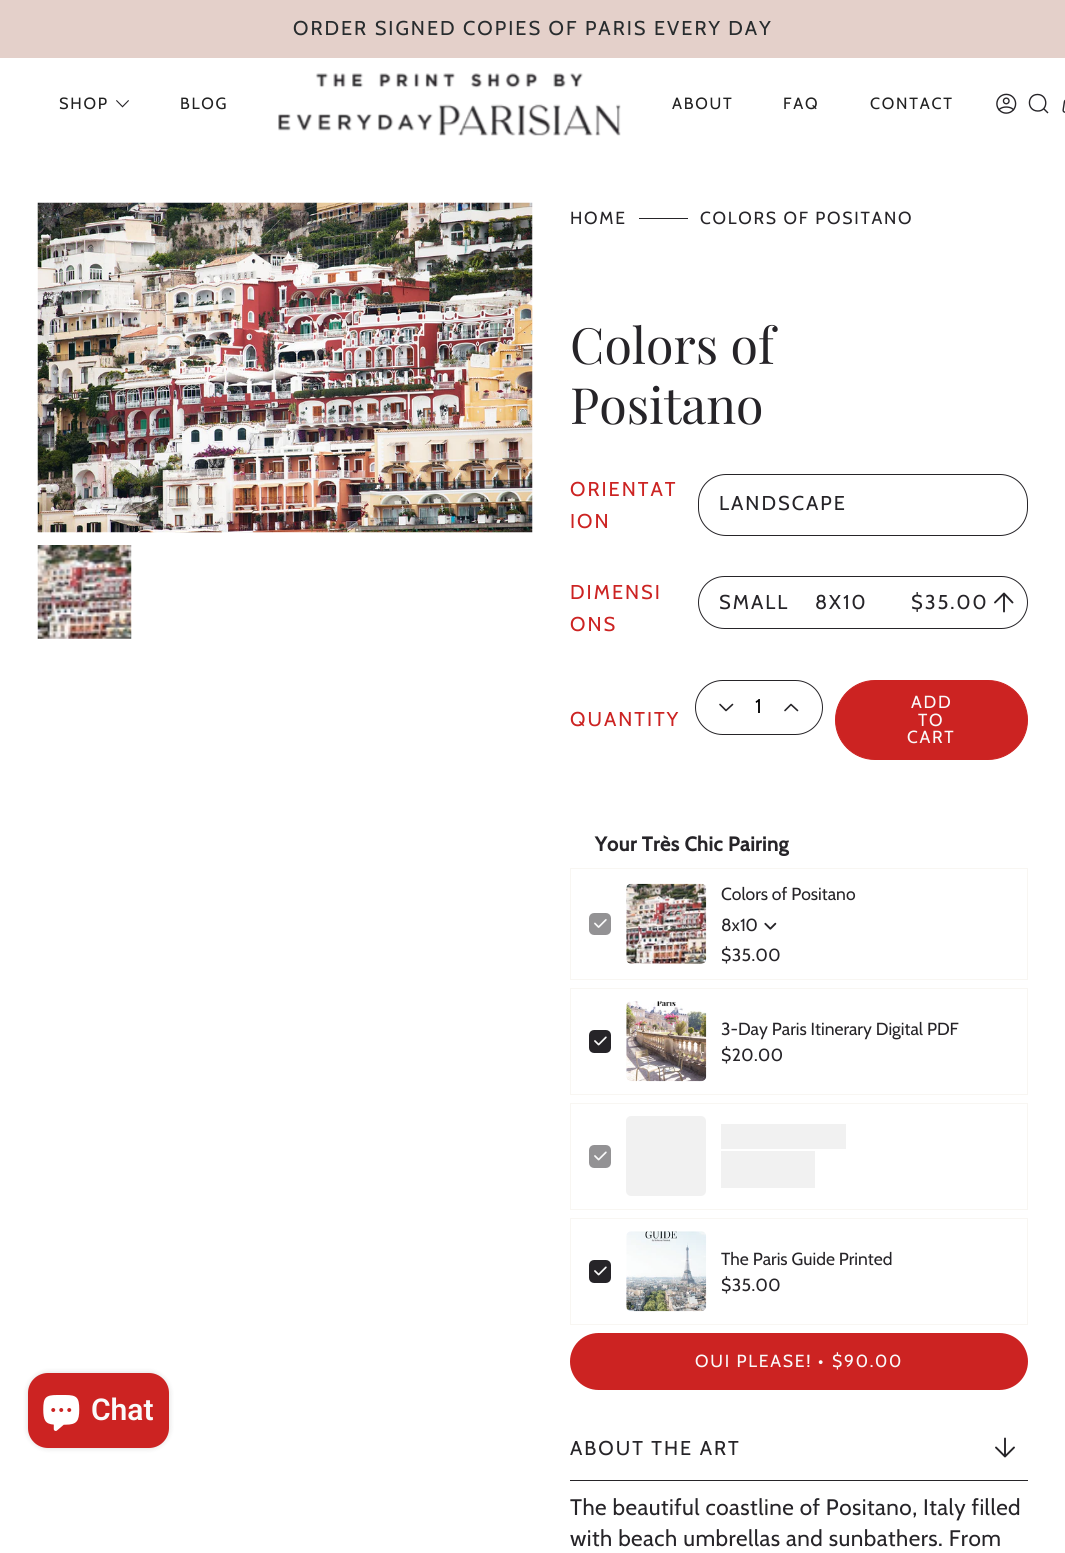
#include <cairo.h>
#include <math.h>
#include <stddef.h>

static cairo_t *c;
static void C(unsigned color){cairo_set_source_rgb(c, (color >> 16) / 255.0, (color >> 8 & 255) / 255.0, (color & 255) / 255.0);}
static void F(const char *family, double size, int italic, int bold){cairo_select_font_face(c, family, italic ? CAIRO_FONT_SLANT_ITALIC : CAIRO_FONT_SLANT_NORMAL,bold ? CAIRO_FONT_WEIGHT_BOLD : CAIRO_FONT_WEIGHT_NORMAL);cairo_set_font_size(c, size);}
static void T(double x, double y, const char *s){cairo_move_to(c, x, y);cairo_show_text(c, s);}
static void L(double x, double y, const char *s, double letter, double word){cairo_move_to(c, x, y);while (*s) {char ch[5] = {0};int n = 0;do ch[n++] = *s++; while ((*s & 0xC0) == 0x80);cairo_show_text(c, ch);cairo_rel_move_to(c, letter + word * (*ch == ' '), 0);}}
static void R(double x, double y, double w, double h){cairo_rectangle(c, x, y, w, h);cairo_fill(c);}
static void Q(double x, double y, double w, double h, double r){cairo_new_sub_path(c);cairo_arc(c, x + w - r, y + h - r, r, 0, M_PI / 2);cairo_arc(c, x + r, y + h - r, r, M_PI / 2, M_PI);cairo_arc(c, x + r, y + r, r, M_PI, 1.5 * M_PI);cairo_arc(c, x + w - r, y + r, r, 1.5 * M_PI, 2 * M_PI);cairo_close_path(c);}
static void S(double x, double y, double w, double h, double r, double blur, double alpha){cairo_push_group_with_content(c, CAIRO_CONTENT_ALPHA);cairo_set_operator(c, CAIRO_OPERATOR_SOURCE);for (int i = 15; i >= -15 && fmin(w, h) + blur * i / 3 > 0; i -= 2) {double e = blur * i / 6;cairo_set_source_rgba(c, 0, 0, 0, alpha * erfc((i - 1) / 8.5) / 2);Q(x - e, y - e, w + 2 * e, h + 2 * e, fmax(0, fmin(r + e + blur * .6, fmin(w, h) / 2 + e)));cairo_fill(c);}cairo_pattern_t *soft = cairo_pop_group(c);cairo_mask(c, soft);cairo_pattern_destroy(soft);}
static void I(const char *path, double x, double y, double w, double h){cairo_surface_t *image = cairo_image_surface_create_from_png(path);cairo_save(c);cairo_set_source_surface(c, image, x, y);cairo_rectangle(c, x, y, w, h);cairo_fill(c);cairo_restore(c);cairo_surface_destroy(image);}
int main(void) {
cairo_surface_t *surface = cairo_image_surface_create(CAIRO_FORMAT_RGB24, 1065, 1553);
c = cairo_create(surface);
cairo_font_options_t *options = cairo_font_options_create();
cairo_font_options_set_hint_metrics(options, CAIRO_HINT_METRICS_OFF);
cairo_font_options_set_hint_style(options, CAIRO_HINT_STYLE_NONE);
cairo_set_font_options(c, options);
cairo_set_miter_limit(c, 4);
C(0xffffff);
cairo_paint(c);
C(0xe4d0ca);
R(0,0,1065,58);
F("Cabin",20,0,0);
C(0x282c2e);
L(293,35,"ORDER SIGNED COPIES OF PARIS EVERY DAY",2,0);
F("Cabin",16.25,0,0);
C(0x212121);
L(59,109,"SHOP",1.75,0);
I("1.png",116,100,13,8);
L(180,109,"BLOG",1.75,0);
I("2.png",278,73,343,63);
L(672,109,"ABOUT",1.75,0);
L(783,109,"FAQ",1.75,0);
L(870,109,"CONTACT",1.75,0);
I("3.png",996,93,21,21);
cairo_new_path(c);
cairo_move_to(c,1037.5,94.5);
cairo_curve_to(c,1048.5,94.5,1048.5,111.5,1037.5,111);
cairo_curve_to(c,1026.5,110.5,1027,94.5,1037.5,94.5);
cairo_close_path(c);
cairo_move_to(c,1043.5,108.5);
cairo_line_to(c,1048,113);
C(0x262428);
cairo_set_line_width(c,1.4);
cairo_stroke(c);
I("4.png",1062,99,3,14);
I("5.png",37,202,496,331);
I("6.png",37,545,95,94);
F("Cabin",17.5,0,0);
L(570,224,"HOME",1.75,0);
R(639,218,49,1);
L(700,224,"COLORS OF POSITANO",1.75,0);
F("Playfair Display",50,0,0);
T(570,364,"Colors of");
T(570,424,"Positano");
F("Cabin",20,0,0);
C(0xcc2322);
L(570,496,"ORIENTAT",2,0);
L(570,528,"ION",2,0);
Q(698.5,474.5,329,61,27.5);
C(0x262428);
cairo_set_line_width(c,1);
cairo_stroke(c);
L(719,510,"LANDSCAPE",2,0);
C(0xcc2322);
L(570,599,"DIMENSI",2,0);
L(570,631,"ONS",2,0);
Q(698.5,576.5,329,52,26);
C(0x262428);
cairo_stroke(c);
L(719,609,"SMALL",2,0);
L(815,609,"8X10",2,0);
L(911,609,"$35.00",2,0);
cairo_new_path(c);
cairo_move_to(c,1004,611.5);
cairo_line_to(c,1004,593.5);
cairo_move_to(c,1004,593.5);
cairo_line_to(c,995,602.5);
cairo_move_to(c,1004,593.5);
cairo_line_to(c,1012.5,602.5);
cairo_set_line_width(c,1.9);
cairo_set_line_cap(c,CAIRO_LINE_CAP_ROUND);
cairo_set_line_join(c,CAIRO_LINE_JOIN_ROUND);
cairo_stroke(c);
Q(695.5,680.5,127,54,27);
cairo_set_line_width(c,1);
cairo_set_line_cap(c,CAIRO_LINE_CAP_BUTT);
cairo_set_line_join(c,CAIRO_LINE_JOIN_MITER);
cairo_stroke(c);
cairo_new_path(c);
cairo_move_to(c,720,704.5);
cairo_line_to(c,726,710.5);
cairo_line_to(c,732.5,704.5);
cairo_set_line_width(c,1.6);
cairo_set_line_cap(c,CAIRO_LINE_CAP_ROUND);
cairo_set_line_join(c,CAIRO_LINE_JOIN_ROUND);
cairo_stroke(c);
C(0x000000);
T(755,713,"1");
cairo_new_path(c);
cairo_move_to(c,785,710.5);
cairo_line_to(c,791,704.5);
cairo_line_to(c,797.5,710.5);
C(0x262428);
cairo_stroke(c);
C(0xcc2322);
Q(835.5,680.5,192,79,39.5);
cairo_fill_preserve(c);
cairo_set_line_width(c,1);
cairo_set_line_cap(c,CAIRO_LINE_CAP_BUTT);
cairo_set_line_join(c,CAIRO_LINE_JOIN_MITER);
cairo_stroke(c);
F("Cabin",17.5,0,0);
C(0xfafafa);
L(911,708,"ADD",1.75,0);
L(918,726,"TO",1.75,0);
L(907,743,"CART",1.75,0);
F("Cabin",20,0,0);
C(0xcc2322);
L(570,726,"QUANTITY",2,0);
F("Cabin",20,0,1);
C(0x262428);
L(595,851,"Your Très Chic Pairing",.45,0);
cairo_rectangle(c,570.5,868.5,457,111);
C(0xf8f6f2);
cairo_stroke(c);
C(0x939294);
Q(590.5,914.5,19,19,3.5);
cairo_fill_preserve(c);
cairo_set_line_width(c,3);
cairo_stroke(c);
I("7.png",594,919,13,9);
I("8.png",626,883,81,81);
F("Cabin",17.5,0,0);
C(0x262428);
T(721,900,"Colors of Positano");
T(721,931,"8x10");
I("9.png",764,922,13,8);
L(721,961,"$35.00",.45,0);
cairo_rectangle(c,570.5,988.5,457,106);
C(0xf8f6f2);
cairo_set_line_width(c,1);
cairo_stroke(c);
C(0x262428);
Q(590.5,1031.5,19,20,3.5);
cairo_fill_preserve(c);
cairo_set_line_width(c,3);
cairo_stroke(c);
I("10.png",594,1036,13,10);
I("11.png",626,1001,81,81);
T(721,1035,"3-Day Paris Itinerary Digital PDF");
L(721,1061,"$20.00",.45,0);
cairo_rectangle(c,570.5,1103.5,457,106);
C(0xf8f6f2);
cairo_set_line_width(c,1);
cairo_stroke(c);
C(0x939294);
Q(590.5,1146.5,19,20,3.5);
cairo_fill_preserve(c);
cairo_set_line_width(c,3);
cairo_stroke(c);
I("12.png",594,1151,13,10);
C(0xf1f1f1);
Q(626,1116,80,80,5);
cairo_fill(c);
R(721,1124,125,25);
R(721,1151,94,37);
cairo_rectangle(c,570.5,1218.5,457,106);
C(0xf8f6f2);
cairo_set_line_width(c,1);
cairo_stroke(c);
C(0x262428);
Q(590.5,1261.5,19,20,3.5);
cairo_fill_preserve(c);
cairo_set_line_width(c,3);
cairo_stroke(c);
I("10.png",594,1266,13,10);
I("13.png",626,1231,81,81);
T(721,1265,"The Paris Guide Printed");
L(721,1291,"$35.00",.45,0);
C(0xcc2322);
Q(570,1333,458,57,28.5);
cairo_fill(c);
C(0xfafafa);
L(695,1367,"OUI PLEASE! •",1.75,0);
L(832,1367,"$90.00",1.75,0);
C(0x262428);
R(570,1480,458,1);
F("Cabin",20,0,0);
L(570,1455,"ABOUT THE ART",2,0);
cairo_new_path(c);
cairo_move_to(c,1005,1438.5);
cairo_line_to(c,1005,1456.5);
cairo_move_to(c,1005,1456.5);
cairo_line_to(c,1014,1447.5);
cairo_move_to(c,1005,1456.5);
cairo_line_to(c,996,1447.5);
cairo_set_line_width(c,1.9);
cairo_set_line_cap(c,CAIRO_LINE_CAP_ROUND);
cairo_set_line_join(c,CAIRO_LINE_JOIN_ROUND);
cairo_stroke(c);
F("Cabin",22.5,0,0);
L(570,1515,"The beautiful coastline of Positano, Italy filled",.45,0);
L(570,1546,"with beach umbrellas and sunbathers. From",.45,0);
C(0x000000);
S(28,1373,141,75,20,3,.15);
C(0xcc2322);
Q(28,1373,141,75,20);
cairo_fill(c);
I("14.png",43,1395,37,36);
F("Roboto SemiBold",30,0,0);
C(0xfafafa);
T(91,1420,"Chat");
cairo_surface_write_to_png(surface, "o.png");
cairo_font_options_destroy(options);
cairo_destroy(c);
cairo_surface_destroy(surface);
return 0;
}
